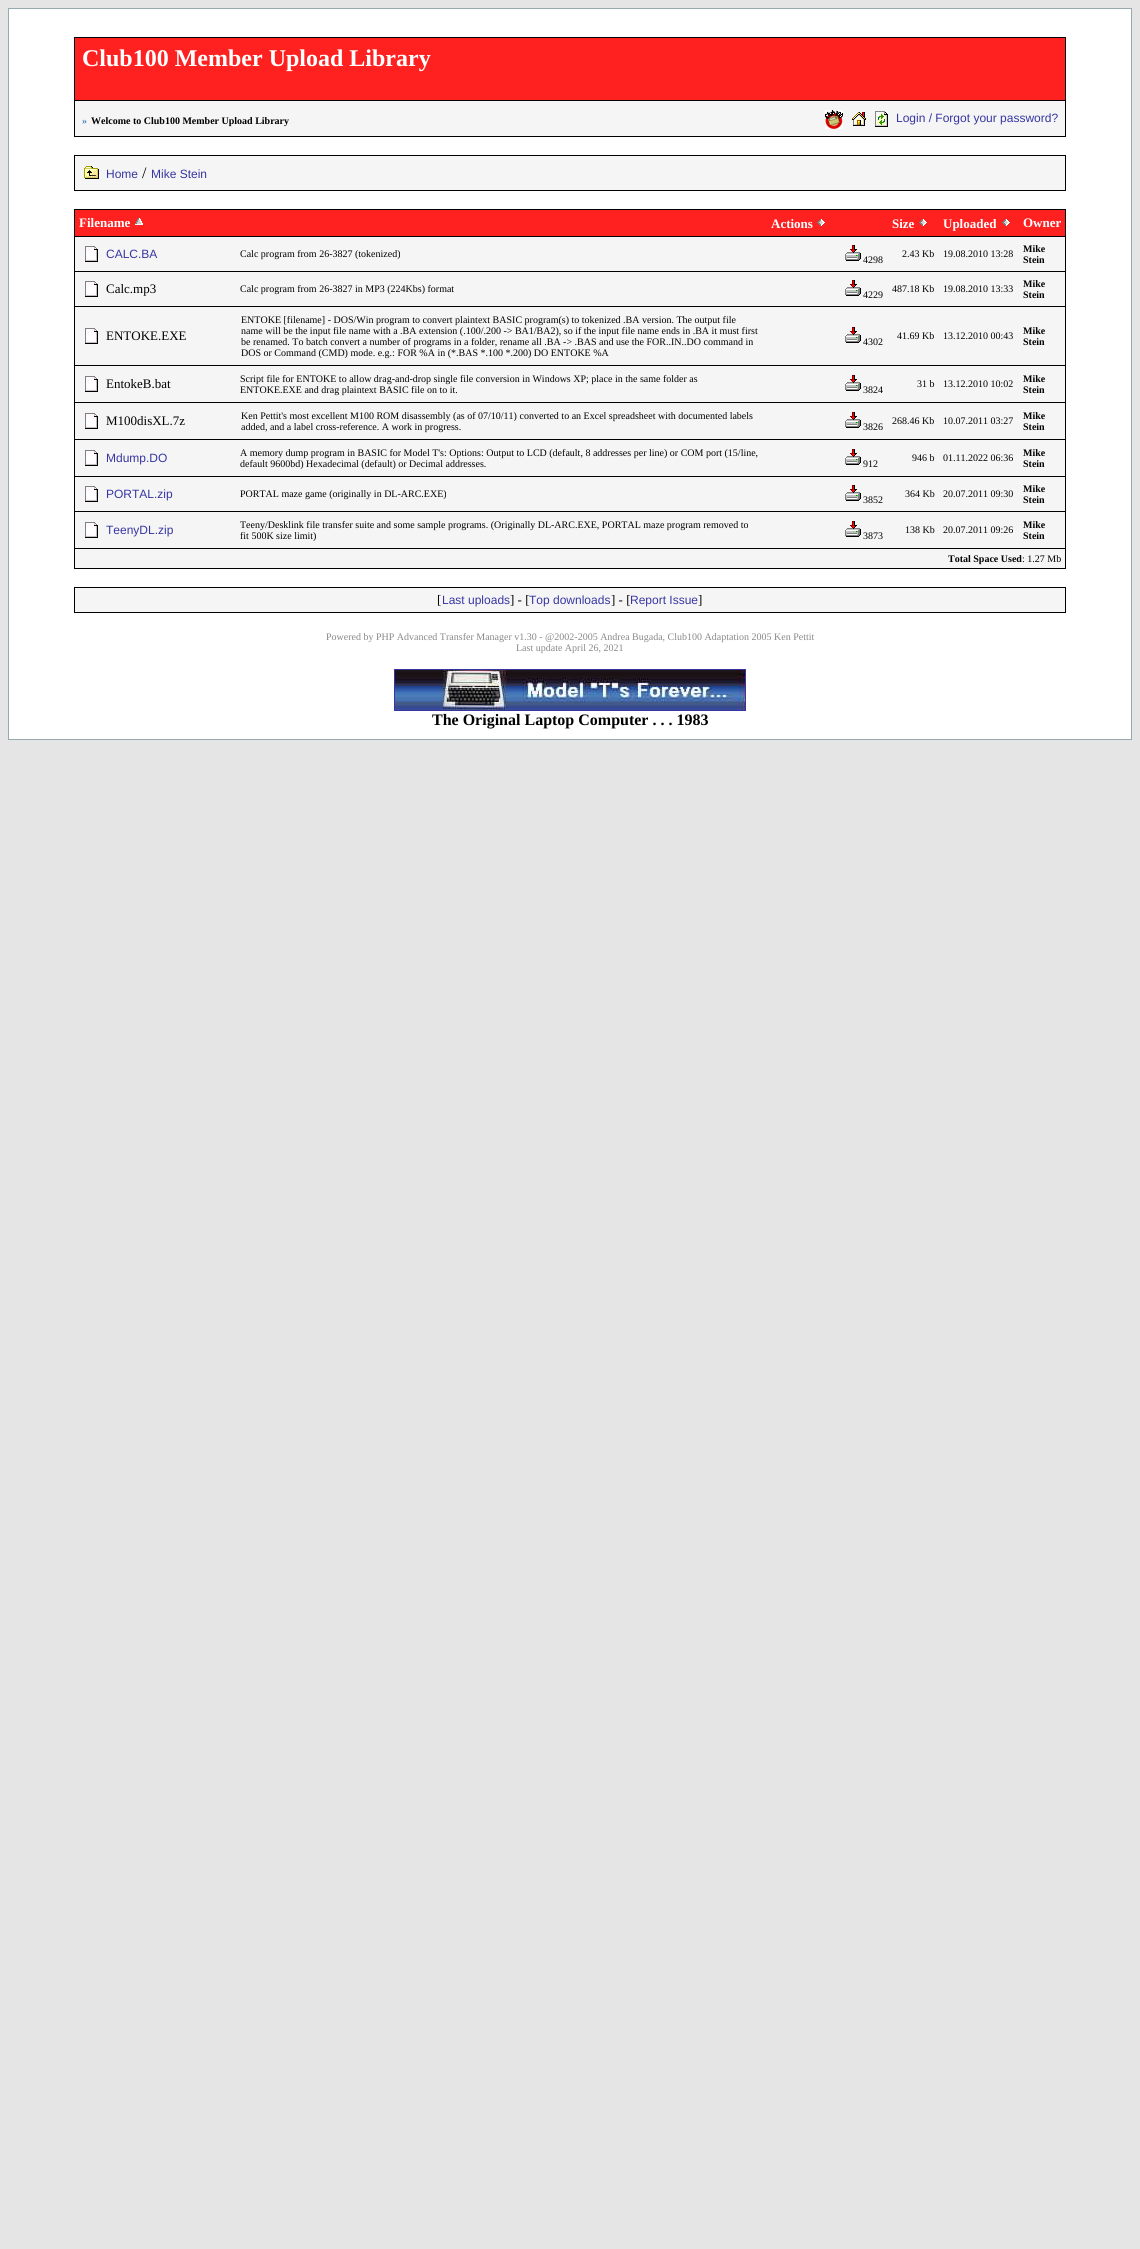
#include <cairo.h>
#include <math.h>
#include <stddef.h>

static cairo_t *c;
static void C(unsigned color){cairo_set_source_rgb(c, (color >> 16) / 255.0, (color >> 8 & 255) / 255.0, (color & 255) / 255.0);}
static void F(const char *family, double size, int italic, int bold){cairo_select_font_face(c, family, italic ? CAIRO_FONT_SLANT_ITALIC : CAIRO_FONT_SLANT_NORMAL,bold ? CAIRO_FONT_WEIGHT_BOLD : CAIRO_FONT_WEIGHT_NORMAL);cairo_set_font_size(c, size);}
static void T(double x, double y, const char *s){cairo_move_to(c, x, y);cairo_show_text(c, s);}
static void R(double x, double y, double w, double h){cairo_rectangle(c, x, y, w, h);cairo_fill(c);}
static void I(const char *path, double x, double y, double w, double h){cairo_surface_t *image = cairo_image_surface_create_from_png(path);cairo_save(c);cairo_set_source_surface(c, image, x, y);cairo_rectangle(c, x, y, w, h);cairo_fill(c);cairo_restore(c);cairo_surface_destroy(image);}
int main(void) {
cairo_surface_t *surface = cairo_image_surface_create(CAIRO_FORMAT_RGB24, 1140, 2249);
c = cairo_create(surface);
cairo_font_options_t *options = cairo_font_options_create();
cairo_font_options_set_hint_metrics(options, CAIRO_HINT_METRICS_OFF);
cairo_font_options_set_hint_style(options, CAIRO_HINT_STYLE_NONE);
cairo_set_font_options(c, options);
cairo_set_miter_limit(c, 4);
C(0xe5e5e5);
cairo_paint(c);
C(0xffffff);
cairo_rectangle(c,8.5,8.5,1123,731);
cairo_fill_preserve(c);
C(0x98aab1);
cairo_set_line_width(c,1);
cairo_stroke(c);
C(0x000000);
R(74,37,992,100);
C(0xff2020);
R(75,38,990,62);
F("Liberation Serif",24,0,1);
C(0xffffff);
T(82,66,"Club100 Member Upload Library");
C(0xf5f5f5);
R(75,101,990,35);
F("Liberation Serif",10,0,1);
C(0x4682b4);
T(82,124,"»");
C(0x000000);
T(91,124,"Welcome to Club100 Member Upload Library");
I("1.png",825,110,18,19);
I("2.png",852,112,14,14);
I("3.png",875,111,13,16);
F("Liberation Sans",12,0,0);
C(0x3636a3);
T(896,122,"Login / Forgot your password?");
C(0x000000);
R(74,155,992,36);
C(0xf5f5f5);
R(75,156,990,34);
I("4.png",84,166,15,13);
C(0x3636a3);
T(106,178,"Home");
F("Liberation Serif",16,0,0);
C(0x000000);
T(142,178,"/");
F("Liberation Sans",12,0,0);
C(0x3636a3);
T(151,178,"Mike Stein");
C(0x000000);
R(74,209,992,360);
C(0xff2020);
R(75,210,990,26);
F("Liberation Serif",13,0,1);
C(0xffffff);
T(79,227,"Filename");
I("5.png",135,218,8,7);
T(771,228,"Actions");
I("6.png",817,219,8,7);
T(892,228,"Size");
I("6.png",919,219,8,7);
T(943,228,"Uploaded");
I("6.png",1002,219,8,7);
T(1023,227,"Owner");
C(0xf5f5f5);
R(75,237,990,34);
I("7.png",85,246,13,16);
F("Liberation Sans",12,0,0);
C(0x3636a3);
T(106,258,"CALC.BA");
F("Liberation Serif",10,0,0);
C(0x000000);
T(240,257,"Calc program from 26-3827 (tokenized)");
T(902,257,"2.43 Kb");
T(943,257,"19.08.2010 13:28");
F("Liberation Serif",10,0,1);
T(1023,252,"Mike");
T(1023,263,"Stein");
I("8.png",845,245,16,16);
F("Liberation Serif",10,0,0);
T(863,263,"4298");
C(0xf5f5f5);
R(75,272,990,34);
I("7.png",85,281,13,16);
F("Liberation Serif",13,0,0);
C(0x000000);
T(106,293,"Calc.mp3");
F("Liberation Serif",10,0,0);
T(240,292,"Calc program from 26-3827 in MP3 (224Kbs) format");
T(892,292,"487.18 Kb");
T(943,292,"19.08.2010 13:33");
F("Liberation Serif",10,0,1);
T(1023,287,"Mike");
T(1023,298,"Stein");
I("8.png",845,280,16,16);
F("Liberation Serif",10,0,0);
T(863,298,"4229");
C(0xf5f5f5);
R(75,307,990,58);
I("7.png",85,328,13,16);
F("Liberation Serif",13,0,0);
C(0x000000);
T(106,340,"ENTOKE.EXE");
F("Liberation Serif",10,0,0);
T(241,323,"ENTOKE [filename] - DOS/Win program to convert plaintext BASIC program(s) to tokenized .BA version. The output file");
T(241,334,"name will be the input file name with a .BA extension (.100/.200 -> BA1/BA2), so if the input file name ends in .BA it must first");
T(241,345,"be renamed. To batch convert a number of programs in a folder, rename all .BA -> .BAS and use the FOR..IN..DO command in");
T(241,356,"DOS or Command (CMD) mode. e.g.: FOR %A in (*.BAS *.100 *.200) DO ENTOKE %A");
T(897,339,"41.69 Kb");
T(943,339,"13.12.2010 00:43");
F("Liberation Serif",10,0,1);
T(1023,334,"Mike");
T(1023,345,"Stein");
I("8.png",845,327,16,16);
F("Liberation Serif",10,0,0);
T(863,345,"4302");
C(0xf5f5f5);
R(75,366,990,36);
I("7.png",85,376,13,16);
F("Liberation Serif",13,0,0);
C(0x000000);
T(106,388,"EntokeB.bat");
F("Liberation Serif",10,0,0);
T(240,382,"Script file for ENTOKE to allow drag-and-drop single file conversion in Windows XP; place in the same folder as");
T(240,393,"ENTOKE.EXE and drag plaintext BASIC file on to it.");
T(917,387,"31 b");
T(943,387,"13.12.2010 10:02");
F("Liberation Serif",10,0,1);
T(1023,382,"Mike");
T(1023,393,"Stein");
I("8.png",845,375,16,16);
F("Liberation Serif",10,0,0);
T(863,393,"3824");
C(0xf5f5f5);
R(75,403,990,36);
I("7.png",85,413,13,16);
F("Liberation Serif",13,0,0);
C(0x000000);
T(106,425,"M100disXL.7z");
F("Liberation Serif",10,0,0);
T(241,419,"Ken Pettit's most excellent M100 ROM disassembly (as of 07/10/11) converted to an Excel spreadsheet with documented labels");
T(241,430,"added, and a label cross-reference. A work in progress.");
T(892,424,"268.46 Kb");
T(943,424,"10.07.2011 03:27");
F("Liberation Serif",10,0,1);
T(1023,419,"Mike");
T(1023,430,"Stein");
I("8.png",845,412,16,16);
F("Liberation Serif",10,0,0);
T(863,430,"3826");
C(0xf5f5f5);
R(75,440,990,36);
I("7.png",85,450,13,16);
F("Liberation Sans",12,0,0);
C(0x3636a3);
T(106,462,"Mdump.DO");
F("Liberation Serif",10,0,0);
C(0x000000);
T(240,456,"A memory dump program in BASIC for Model T's: Options: Output to LCD (default, 8 addresses per line) or COM port (15/line,");
T(240,467,"default 9600bd) Hexadecimal (default) or Decimal addresses.");
T(912,461,"946 b");
T(943,461,"01.11.2022 06:36");
F("Liberation Serif",10,0,1);
T(1023,456,"Mike");
T(1023,467,"Stein");
I("8.png",845,449,16,16);
F("Liberation Serif",10,0,0);
T(863,467,"912");
C(0xf5f5f5);
R(75,477,990,34);
I("7.png",85,486,13,16);
F("Liberation Sans",12,0,0);
C(0x3636a3);
T(106,498,"PORTAL.zip");
F("Liberation Serif",10,0,0);
C(0x000000);
T(240,497,"PORTAL maze game (originally in DL-ARC.EXE)");
T(905,497,"364 Kb");
T(943,497,"20.07.2011 09:30");
F("Liberation Serif",10,0,1);
T(1023,492,"Mike");
T(1023,503,"Stein");
I("8.png",845,485,16,16);
F("Liberation Serif",10,0,0);
T(863,503,"3852");
C(0xf5f5f5);
R(75,512,990,36);
I("7.png",85,522,13,16);
F("Liberation Sans",12,0,0);
C(0x3636a3);
T(106,534,"TeenyDL.zip");
F("Liberation Serif",10,0,0);
C(0x000000);
T(240,528,"Teeny/Desklink file transfer suite and some sample programs. (Originally DL-ARC.EXE, PORTAL maze program removed to");
T(240,539,"fit 500K size limit)");
T(905,533,"138 Kb");
T(943,533,"20.07.2011 09:26");
F("Liberation Serif",10,0,1);
T(1023,528,"Mike");
T(1023,539,"Stein");
I("8.png",845,521,16,16);
F("Liberation Serif",10,0,0);
T(863,539,"3873");
C(0xf5f5f5);
R(75,549,990,19);
F("Liberation Serif",10,0,1);
C(0x000000);
T(948,562,"Total Space Used");
F("Liberation Serif",10,0,0);
T(1022,562,": 1.27 Mb");
R(74,587,992,26);
C(0xf5f5f5);
R(75,588,990,24);
F("Liberation Serif",13,0,0);
C(0x000000);
T(437,604,"[");
F("Liberation Sans",12,0,0);
C(0x3636a3);
T(442,604,"Last uploads");
F("Liberation Serif",13,0,0);
C(0x000000);
T(510,604,"] - [");
F("Liberation Sans",12,0,0);
C(0x3636a3);
T(529,604,"Top downloads");
F("Liberation Serif",13,0,0);
C(0x000000);
T(611,604,"] - [");
F("Liberation Sans",12,0,0);
C(0x3636a3);
T(630,604,"Report Issue");
F("Liberation Serif",13,0,0);
C(0x000000);
T(698,604,"]");
F("Liberation Serif",10,0,0);
C(0x888888);
T(326,640,"Powered by PHP Advanced Transfer Manager v1.30 - @2002-2005 Andrea Bugada, Club100 Adaptation 2005 Ken Pettit");
T(516,651,"Last update April 26, 2021");
cairo_rectangle(c,394.5,669.5,351,41);
C(0x3636a3);
cairo_stroke(c);
I("9.png",395,670,350,40);
F("Liberation Serif",16,0,1);
C(0x000000);
T(432,725,"The Original Laptop Computer . . . 1983");
cairo_surface_write_to_png(surface, "o.png");
cairo_font_options_destroy(options);
cairo_destroy(c);
cairo_surface_destroy(surface);
return 0;
}
